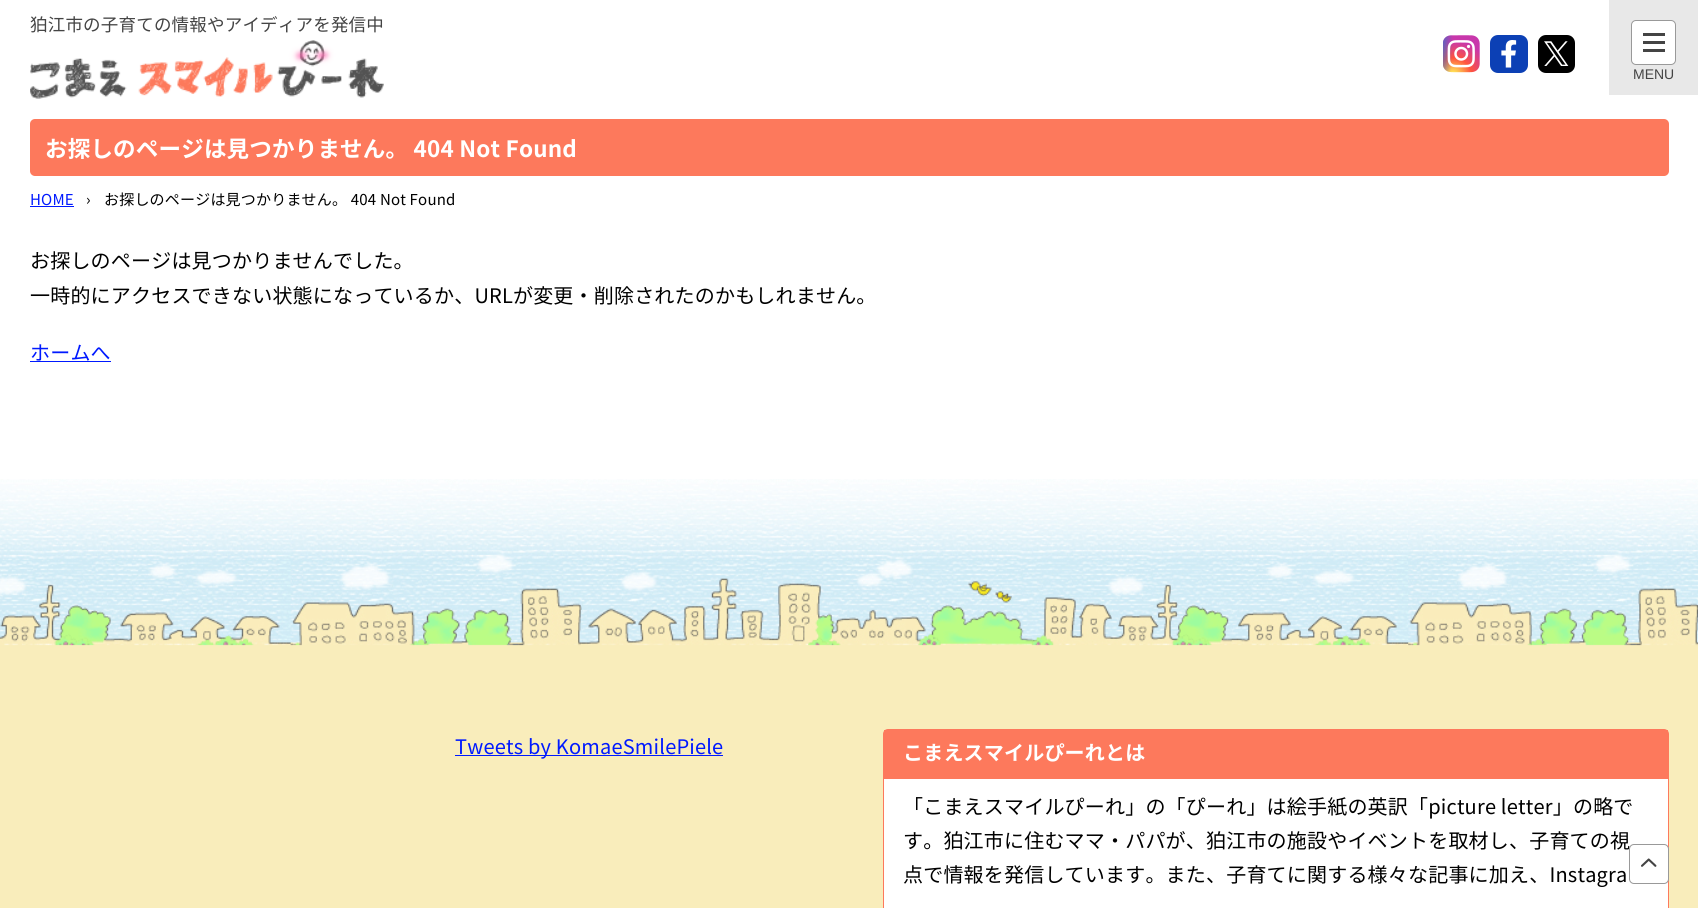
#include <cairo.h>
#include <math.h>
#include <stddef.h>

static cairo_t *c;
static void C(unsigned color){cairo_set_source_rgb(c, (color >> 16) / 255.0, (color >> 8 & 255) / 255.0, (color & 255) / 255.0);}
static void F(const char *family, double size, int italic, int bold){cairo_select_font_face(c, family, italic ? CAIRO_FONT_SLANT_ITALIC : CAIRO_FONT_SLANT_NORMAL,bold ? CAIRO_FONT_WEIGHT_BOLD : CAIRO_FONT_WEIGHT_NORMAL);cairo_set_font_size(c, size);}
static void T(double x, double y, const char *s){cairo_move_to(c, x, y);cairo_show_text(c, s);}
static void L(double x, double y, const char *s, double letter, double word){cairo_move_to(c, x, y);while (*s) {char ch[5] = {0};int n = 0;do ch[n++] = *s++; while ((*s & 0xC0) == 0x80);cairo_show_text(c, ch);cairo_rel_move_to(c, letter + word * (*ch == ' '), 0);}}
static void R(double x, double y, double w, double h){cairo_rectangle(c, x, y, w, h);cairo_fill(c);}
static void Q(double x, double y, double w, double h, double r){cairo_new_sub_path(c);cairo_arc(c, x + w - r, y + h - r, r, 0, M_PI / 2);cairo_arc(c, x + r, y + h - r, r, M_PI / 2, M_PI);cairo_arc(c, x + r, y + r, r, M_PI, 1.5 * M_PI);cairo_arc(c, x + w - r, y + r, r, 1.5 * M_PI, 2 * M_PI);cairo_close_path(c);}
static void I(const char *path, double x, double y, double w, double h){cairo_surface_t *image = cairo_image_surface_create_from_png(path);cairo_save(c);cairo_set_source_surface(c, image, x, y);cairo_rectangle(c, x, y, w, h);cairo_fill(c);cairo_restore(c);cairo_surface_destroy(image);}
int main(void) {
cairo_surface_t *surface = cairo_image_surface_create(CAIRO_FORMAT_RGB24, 1698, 908);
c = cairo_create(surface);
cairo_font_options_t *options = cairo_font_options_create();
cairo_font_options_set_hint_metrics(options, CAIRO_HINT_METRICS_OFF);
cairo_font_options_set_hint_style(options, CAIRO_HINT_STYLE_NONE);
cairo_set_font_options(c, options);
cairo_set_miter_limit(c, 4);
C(0xffffff);
cairo_paint(c);
F("Noto Sans JP",17.5,0,0);
C(0x444444);
L(30,31,"狛江市の子育ての情報やアイディアを発信中",.2,0);
I("1.png",30,40,354,59);
I("2.png",1443,35,37,38);
C(0x0c40b5);
Q(1490,35,38,38,8);
cairo_fill(c);
I("3.png",1501,40,16,28);
C(0x000000);
Q(1538,35,37,38,8);
cairo_fill(c);
I("4.png",1544,41,25,25);
C(0xe8e8e8);
R(1609,0,89,95);
C(0xffffff);
Q(1631.5,20.5,44,44,4.5);
cairo_fill_preserve(c);
C(0x999999);
cairo_set_line_width(c,1);
cairo_stroke(c);
C(0x444444);
R(1643,41,22,3);
R(1643,33,22,3);
R(1643,49,22,3);
F("Liberation Sans",14,0,0);
T(1633,79,"MENU");
C(0xfd795c);
Q(30,119,1639,57,5);
cairo_fill(c);
F("Noto Sans JP",22.5,0,1);
C(0xffffff);
L(45,157,"お探しのページは見つかりません。 404 Not Found",.2,0);
F("Noto Sans JP",15,0,0);
C(0x0019ff);
L(30,205,"HOME",.2,0);
R(30,206,44,1);
C(0x000000);
L(86,205,"›",.2,0);
L(104,205,"お探しのページは見つかりません。 404 Not Found",.2,0);
F("Noto Sans JP",20,0,0);
L(30,268,"お探しのページは見つかりませんでした。",.2,0);
L(30,303,"一時的にアクセスできない状態になっているか、URLが変更・削除されたのかもしれません。",.2,0);
C(0x0019ff);
L(30,360,"ホームへ",.2,0);
R(30,361,81,1);
C(0xf9edbb);
R(0,646,1698,262);
I("5.png",0,479,1698,167);
C(0x0019ff);
R(455,755,268,1);
L(455,754,"Tweets by KomaeSmilePiele",.2,0);
C(0xffffff);
Q(883.5,729.5,785,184,4.5);
cairo_fill_preserve(c);
C(0xfd795c);
cairo_stroke(c);
R(884,730,784,49);
F("Noto Sans JP",20,0,1);
C(0xffffff);
L(903,760,"こまえスマイルぴーれとは",.2,0);
F("Noto Sans JP",20,0,0);
C(0x000000);
L(903,814,"「こまえスマイルぴーれ」の「ぴーれ」は絵手紙の英訳「picture letter」の略で",.2,0);
L(903,848,"す。狛江市に住むママ・パパが、狛江市の施設やイベントを取材し、子育ての視",.2,0);
L(903,882,"点で情報を発信しています。また、子育てに関する様々な記事に加え、Instagra",.2,0);
cairo_set_source_rgba(c,1,1,1,0.88);
Q(1629.5,844.5,39,39,4.5);
cairo_fill_preserve(c);
C(0x999999);
cairo_stroke(c);
I("6.png",1641,858,16,9);
cairo_surface_write_to_png(surface, "o.png");
cairo_font_options_destroy(options);
cairo_destroy(c);
cairo_surface_destroy(surface);
return 0;
}
